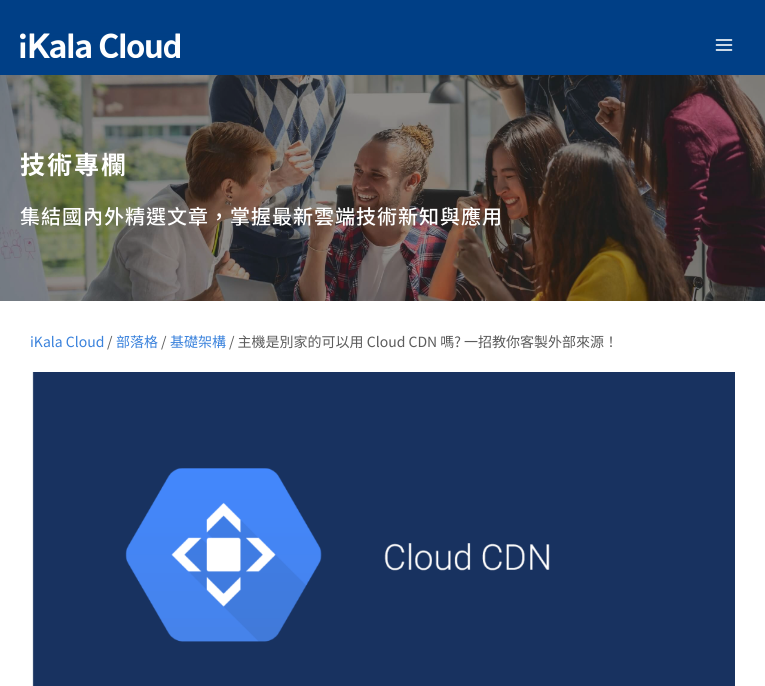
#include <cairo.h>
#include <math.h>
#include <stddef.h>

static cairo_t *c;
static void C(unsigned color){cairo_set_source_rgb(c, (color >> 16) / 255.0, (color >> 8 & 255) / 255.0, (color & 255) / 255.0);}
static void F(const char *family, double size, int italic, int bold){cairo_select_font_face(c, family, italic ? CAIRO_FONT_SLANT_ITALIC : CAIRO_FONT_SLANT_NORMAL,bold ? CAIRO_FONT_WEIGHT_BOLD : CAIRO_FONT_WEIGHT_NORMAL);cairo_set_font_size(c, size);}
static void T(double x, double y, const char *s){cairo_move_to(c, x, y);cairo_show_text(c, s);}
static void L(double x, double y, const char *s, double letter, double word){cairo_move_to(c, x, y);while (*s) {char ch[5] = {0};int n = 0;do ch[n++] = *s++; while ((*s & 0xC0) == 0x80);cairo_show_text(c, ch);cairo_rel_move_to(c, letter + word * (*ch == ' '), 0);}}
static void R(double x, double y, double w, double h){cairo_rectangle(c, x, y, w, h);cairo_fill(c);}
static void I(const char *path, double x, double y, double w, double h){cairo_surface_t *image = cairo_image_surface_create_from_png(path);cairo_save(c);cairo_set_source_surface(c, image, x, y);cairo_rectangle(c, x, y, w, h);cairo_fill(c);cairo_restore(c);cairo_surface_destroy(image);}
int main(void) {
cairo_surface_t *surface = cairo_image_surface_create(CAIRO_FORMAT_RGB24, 765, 686);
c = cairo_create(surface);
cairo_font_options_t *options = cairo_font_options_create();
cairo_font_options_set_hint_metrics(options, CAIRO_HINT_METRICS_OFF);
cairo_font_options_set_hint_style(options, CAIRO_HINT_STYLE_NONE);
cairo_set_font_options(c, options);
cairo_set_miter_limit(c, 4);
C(0xffffff);
cairo_paint(c);
C(0x003f86);
R(0,0,765,75);
I("1.png",20,33,160,25);
I("2.png",715,39,18,12);
I("3.png",0,75,765,226);
F("Noto Sans TC",25,0,1);
C(0xffffff);
L(20,174,"技術專欄",2,0);
F("Noto Sans TC Medium",20,0,0);
L(20,224,"集結國內外精選文章，掌握最新雲端技術新知與應用",1,0);
F("Noto Sans TC",14,0,0);
C(0x3a82dc);
T(30,347,"iKala Cloud");
C(0x5c5c5c);
T(107,347,"/");
C(0x3a82dc);
T(116,347,"部落格");
C(0x5c5c5c);
T(161,347,"/");
C(0x3a82dc);
T(170,347,"基礎架構");
C(0x5c5c5c);
T(229,347,"/ 主機是別家的可以用 Cloud CDN 嗎? 一招教你客製外部來源！");
I("4.png",32,372,703,314);
cairo_surface_write_to_png(surface, "o.png");
cairo_font_options_destroy(options);
cairo_destroy(c);
cairo_surface_destroy(surface);
return 0;
}
